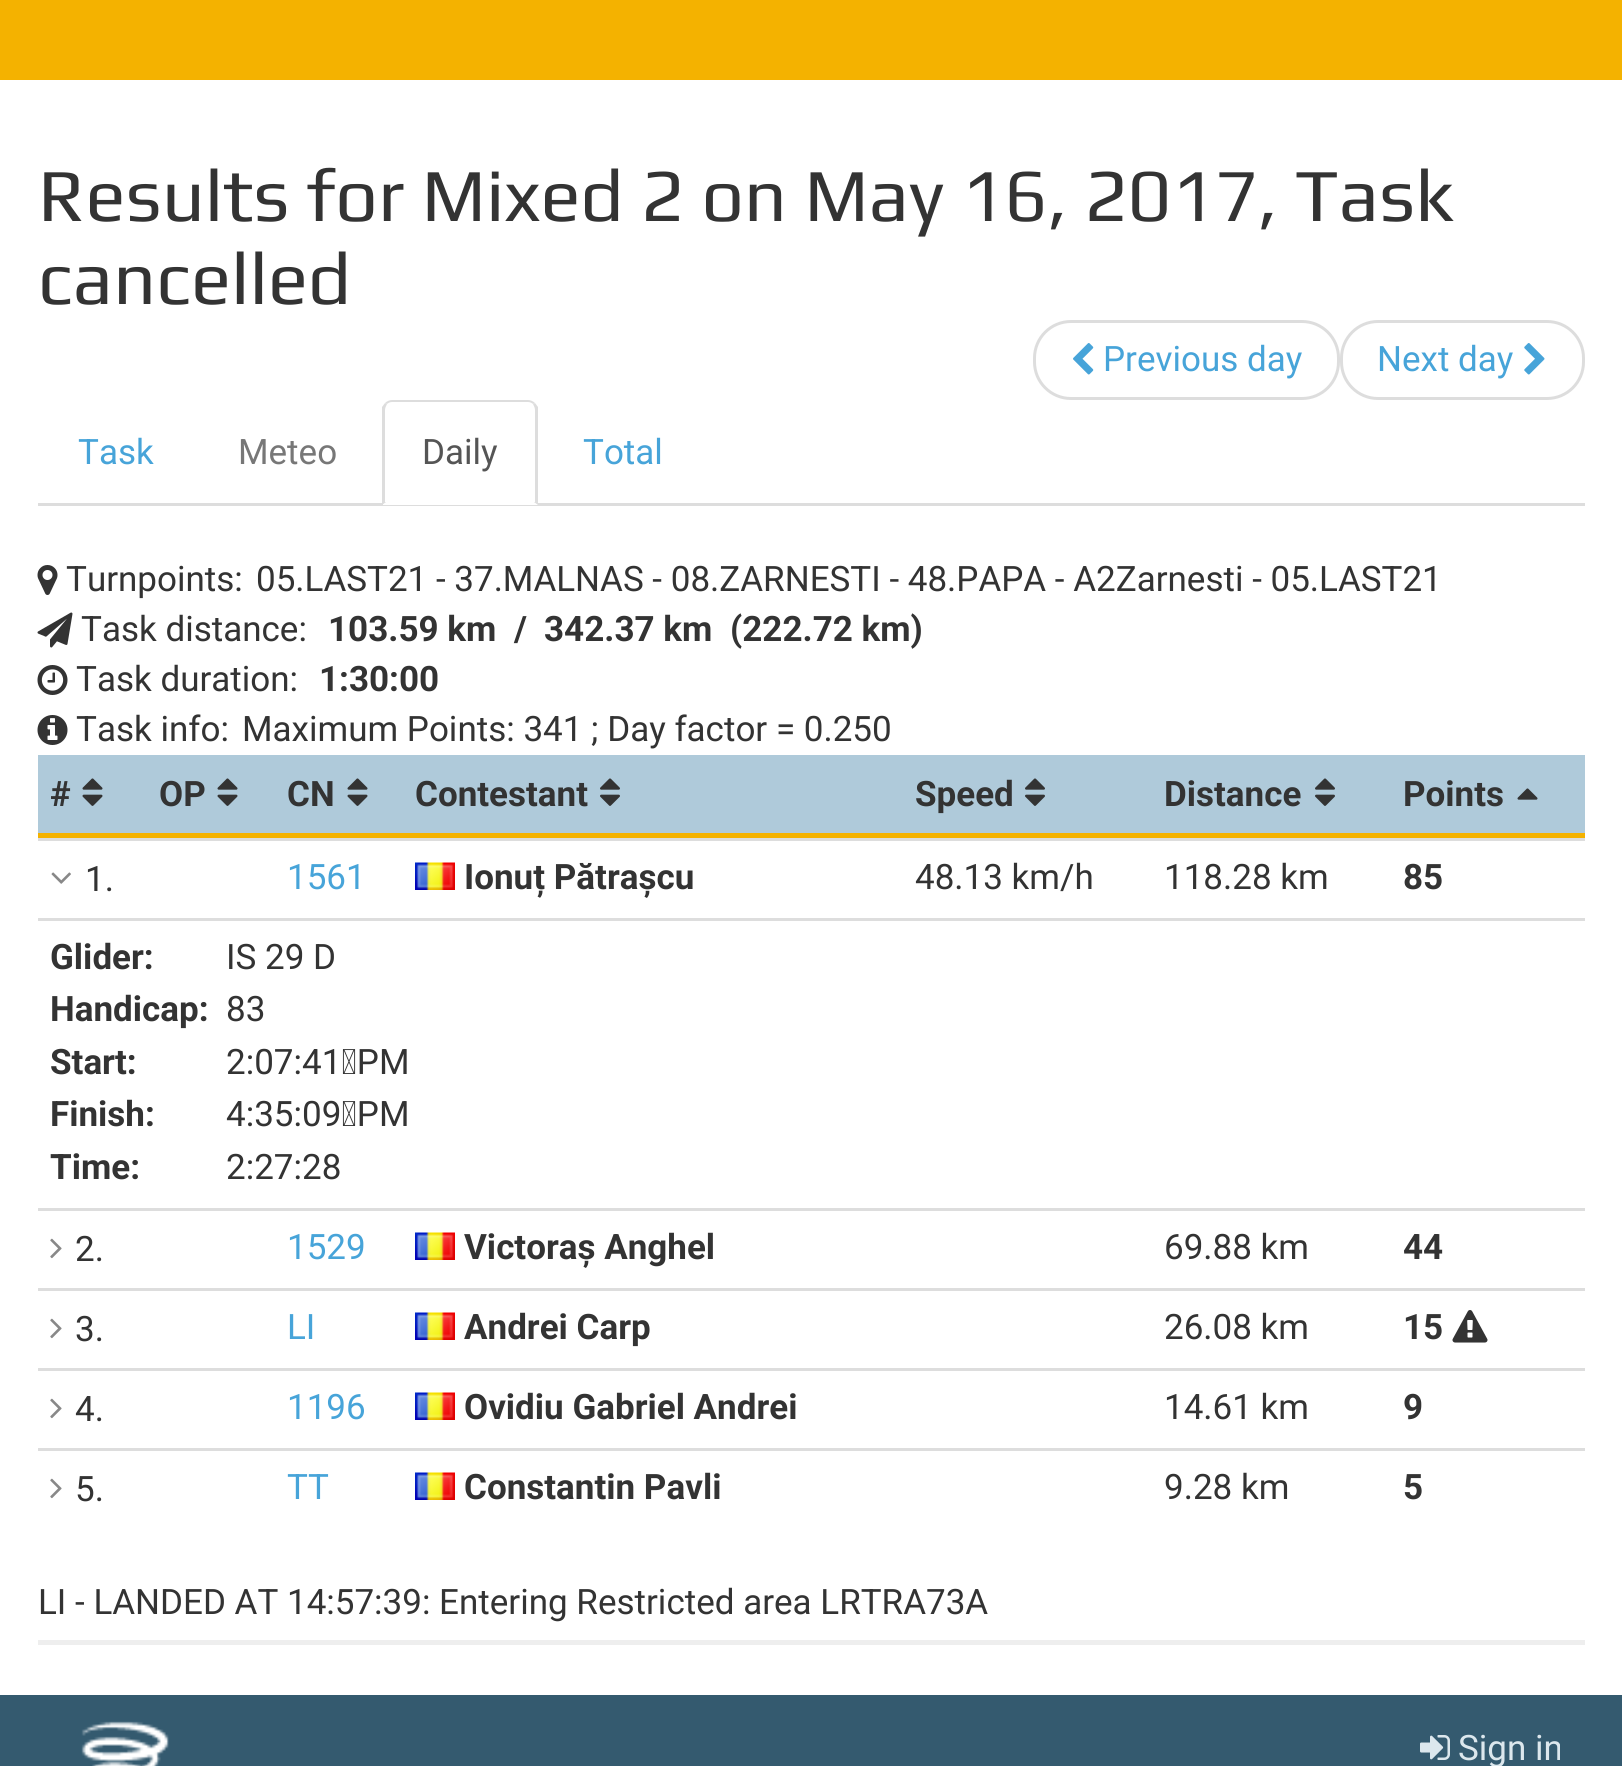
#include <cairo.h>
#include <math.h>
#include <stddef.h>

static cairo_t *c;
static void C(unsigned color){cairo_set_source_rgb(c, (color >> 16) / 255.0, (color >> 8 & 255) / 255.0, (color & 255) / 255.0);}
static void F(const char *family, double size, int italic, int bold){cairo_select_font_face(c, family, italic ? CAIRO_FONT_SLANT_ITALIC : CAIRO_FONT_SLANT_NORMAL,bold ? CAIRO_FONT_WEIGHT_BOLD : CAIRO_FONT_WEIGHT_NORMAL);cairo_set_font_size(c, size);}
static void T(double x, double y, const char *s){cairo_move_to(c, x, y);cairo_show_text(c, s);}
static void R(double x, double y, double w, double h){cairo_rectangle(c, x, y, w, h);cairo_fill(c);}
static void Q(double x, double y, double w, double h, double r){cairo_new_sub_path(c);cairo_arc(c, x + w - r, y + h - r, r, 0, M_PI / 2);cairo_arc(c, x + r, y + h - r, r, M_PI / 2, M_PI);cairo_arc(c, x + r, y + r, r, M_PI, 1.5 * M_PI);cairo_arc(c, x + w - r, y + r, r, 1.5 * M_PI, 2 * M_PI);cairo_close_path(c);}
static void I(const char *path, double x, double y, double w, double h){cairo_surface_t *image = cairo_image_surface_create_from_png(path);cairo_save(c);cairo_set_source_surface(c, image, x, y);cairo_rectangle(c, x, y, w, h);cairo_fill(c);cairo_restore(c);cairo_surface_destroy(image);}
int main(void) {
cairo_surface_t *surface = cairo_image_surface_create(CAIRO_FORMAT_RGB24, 1622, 1766);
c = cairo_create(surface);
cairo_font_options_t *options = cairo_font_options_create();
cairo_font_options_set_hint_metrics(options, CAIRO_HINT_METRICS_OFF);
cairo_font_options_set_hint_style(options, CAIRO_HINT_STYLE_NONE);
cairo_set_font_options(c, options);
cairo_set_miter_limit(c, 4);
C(0xffffff);
cairo_paint(c);
C(0xf4b200);
R(0,0,1622,80);
F("Play",75,0,0);
C(0x333333);
T(38,221,"Results for Mixed 2 on May 16, 2017, Task");
T(38,304,"cancelled");
Q(1034.5,321.5,304,77,36.5);
C(0xdddddd);
cairo_set_line_width(c,3);
cairo_stroke(c);
I("1.png",1073,343,21,32);
F("Roboto",35,0,0);
C(0x47a4d9);
T(1103,371,"Previous day");
Q(1341.5,321.5,242,77,36.5);
C(0xdddddd);
cairo_stroke(c);
C(0x47a4d9);
T(1377,371,"Next day");
I("2.png",1524,343,21,32);
C(0xdddddd);
R(38,503,1547,3);
C(0x47a4d9);
T(78,464,"Task");
C(0x777777);
T(238,464,"Meteo");
C(0xffffff);
cairo_new_path(c);
cairo_move_to(c,393,400);
cairo_line_to(c,528,400);
cairo_curve_to(c,533.5,400,538,404.5,538,410);
cairo_line_to(c,538,505);
cairo_line_to(c,383,505);
cairo_line_to(c,383,410);
cairo_curve_to(c,383,404.5,387.5,400,393,400);
cairo_close_path(c);
cairo_fill(c);
C(0xdddddd);
cairo_new_path(c);
cairo_move_to(c,392,400);
cairo_curve_to(c,390,400,387,401,385,403);
cairo_line_to(c,387,404);
cairo_curve_to(c,388,403,390,402,392,402);
cairo_line_to(c,528,402);
cairo_curve_to(c,530,402,532,403,533,404);
cairo_line_to(c,535,403);
cairo_curve_to(c,533,401,530,400,528,400);
cairo_close_path(c);
cairo_fill(c);
cairo_new_path(c);
cairo_move_to(c,538,407);
cairo_line_to(c,538,505);
cairo_line_to(c,534,502);
cairo_line_to(c,535,502);
cairo_line_to(c,535,410);
cairo_curve_to(c,535,408,534,406,533,404);
cairo_line_to(c,535,403);
cairo_close_path(c);
cairo_fill(c);
cairo_new_path(c);
cairo_move_to(c,382,505);
cairo_line_to(c,382,407);
cairo_line_to(c,385,403);
cairo_line_to(c,387,404);
cairo_curve_to(c,386,406,385,408,385,410);
cairo_line_to(c,385,502);
cairo_line_to(c,386,502);
cairo_close_path(c);
cairo_fill(c);
C(0x555555);
T(422,464,"Daily");
C(0x47a4d9);
T(583,464,"Total");
I("3.png",37,565,21,30);
C(0x333333);
T(66,591,"Turnpoints:");
T(256,591,"05.LAST21 - 37.MALNAS - 08.ZARNESTI - 48.PAPA - A2Zarnesti - 05.LAST21");
I("4.png",37,612,36,36);
T(81,641,"Task distance:");
F("Roboto",35,0,1);
T(328,641,"103.59 km");
T(514,641,"/");
T(544,641,"342.37 km");
T(730,641,"(222.72 km)");
I("5.png",37,665,31,30);
F("Roboto",35,0,0);
T(76,691,"Task duration:");
F("Roboto",35,0,1);
T(319,691,"1:30:00");
I("6.png",37,715,31,30);
F("Roboto",35,0,0);
T(76,741,"Task info:");
T(242,741,"Maximum Points: 341 ; Day factor = 0.250");
C(0xafcada);
R(38,755,1547,78);
C(0xf4b200);
R(38,833,1547,5);
F("Roboto",35,0,1);
C(0x333333);
T(50,806,"#");
I("7.png",82,778,21,28);
T(159,806,"OP");
I("7.png",217,778,21,28);
T(287,806,"CN");
I("7.png",347,778,21,28);
T(415,806,"Contestant");
I("8.png",600,778,20,28);
T(915,806,"Speed");
I("8.png",1025,778,20,28);
T(1164,806,"Distance");
I("8.png",1315,778,20,28);
T(1403,806,"Points");
I("9.png",1517,788,21,12);
C(0xdddddd);
R(38,838,1547,3);
I("10.png",51,872,20,12);
F("Roboto",35,0,0);
C(0x333333);
T(85,891,"1.");
C(0x47a4d9);
T(287,889,"1561");
I("11.png",415,862,40,28);
F("Roboto",35,0,1);
C(0x333333);
T(464,889,"Ionuț Pătrașcu");
F("Roboto",35,0,0);
T(915,889,"48.13 km/h");
T(1164,889,"118.28 km");
F("Roboto",35,0,1);
T(1403,889,"85");
C(0xdddddd);
R(38,918,1547,3);
C(0x333333);
T(50,969,"Glider:");
F("Roboto",35,0,0);
T(226,969,"IS 29 D");
F("Roboto",35,0,1);
T(50,1021,"Handicap:");
F("Roboto",35,0,0);
T(226,1021,"83");
F("Roboto",35,0,1);
T(50,1074,"Start:");
F("Roboto",35,0,0);
T(226,1074,"2:07:41 PM");
F("Roboto",35,0,1);
T(50,1126,"Finish:");
F("Roboto",35,0,0);
T(226,1126,"4:35:09 PM");
F("Roboto",35,0,1);
T(50,1179,"Time:");
F("Roboto",35,0,0);
T(226,1179,"2:27:28");
C(0xdddddd);
R(38,1208,1547,3);
I("12.png",50,1238,12,21);
C(0x333333);
T(75,1261,"2.");
C(0x47a4d9);
T(287,1259,"1529");
I("11.png",415,1232,40,28);
F("Roboto",35,0,1);
C(0x333333);
T(464,1259,"Victoraș Anghel");
F("Roboto",35,0,0);
T(1164,1259,"69.88 km");
F("Roboto",35,0,1);
T(1403,1259,"44");
C(0xdddddd);
R(38,1288,1547,3);
I("12.png",50,1318,12,21);
F("Roboto",35,0,0);
C(0x333333);
T(75,1341,"3.");
C(0x47a4d9);
T(287,1339,"LI");
I("11.png",415,1312,40,28);
F("Roboto",35,0,1);
C(0x333333);
T(464,1339,"Andrei Carp");
F("Roboto",35,0,0);
T(1164,1339,"26.08 km");
F("Roboto",35,0,1);
T(1403,1339,"15");
I("13.png",1452,1310,36,33);
C(0xdddddd);
R(38,1368,1547,3);
I("12.png",50,1398,12,21);
F("Roboto",35,0,0);
C(0x333333);
T(75,1421,"4.");
C(0x47a4d9);
T(287,1419,"1196");
I("11.png",415,1392,40,28);
F("Roboto",35,0,1);
C(0x333333);
T(464,1419,"Ovidiu Gabriel Andrei");
F("Roboto",35,0,0);
T(1164,1419,"14.61 km");
F("Roboto",35,0,1);
T(1403,1419,"9");
C(0xdddddd);
R(38,1448,1547,3);
I("12.png",50,1478,12,21);
F("Roboto",35,0,0);
C(0x333333);
T(75,1501,"5.");
C(0x47a4d9);
T(287,1499,"TT");
I("11.png",415,1472,40,28);
F("Roboto",35,0,1);
C(0x333333);
T(464,1499,"Constantin Pavli");
F("Roboto",35,0,0);
T(1164,1499,"9.28 km");
F("Roboto",35,0,1);
T(1403,1499,"5");
F("Roboto",35,0,0);
T(38,1614,"LI - LANDED AT 14:57:39: Entering Restricted area LRTRA73A");
C(0xeeeeee);
R(38,1640,1547,5);
C(0x345a6f);
R(0,1695,1622,71);
I("14.png",81,1721,88,45);
I("15.png",1420,1735,30,25);
C(0xdce7ed);
T(1458,1760,"Sign in");
cairo_surface_write_to_png(surface, "o.png");
cairo_font_options_destroy(options);
cairo_destroy(c);
cairo_surface_destroy(surface);
return 0;
}
